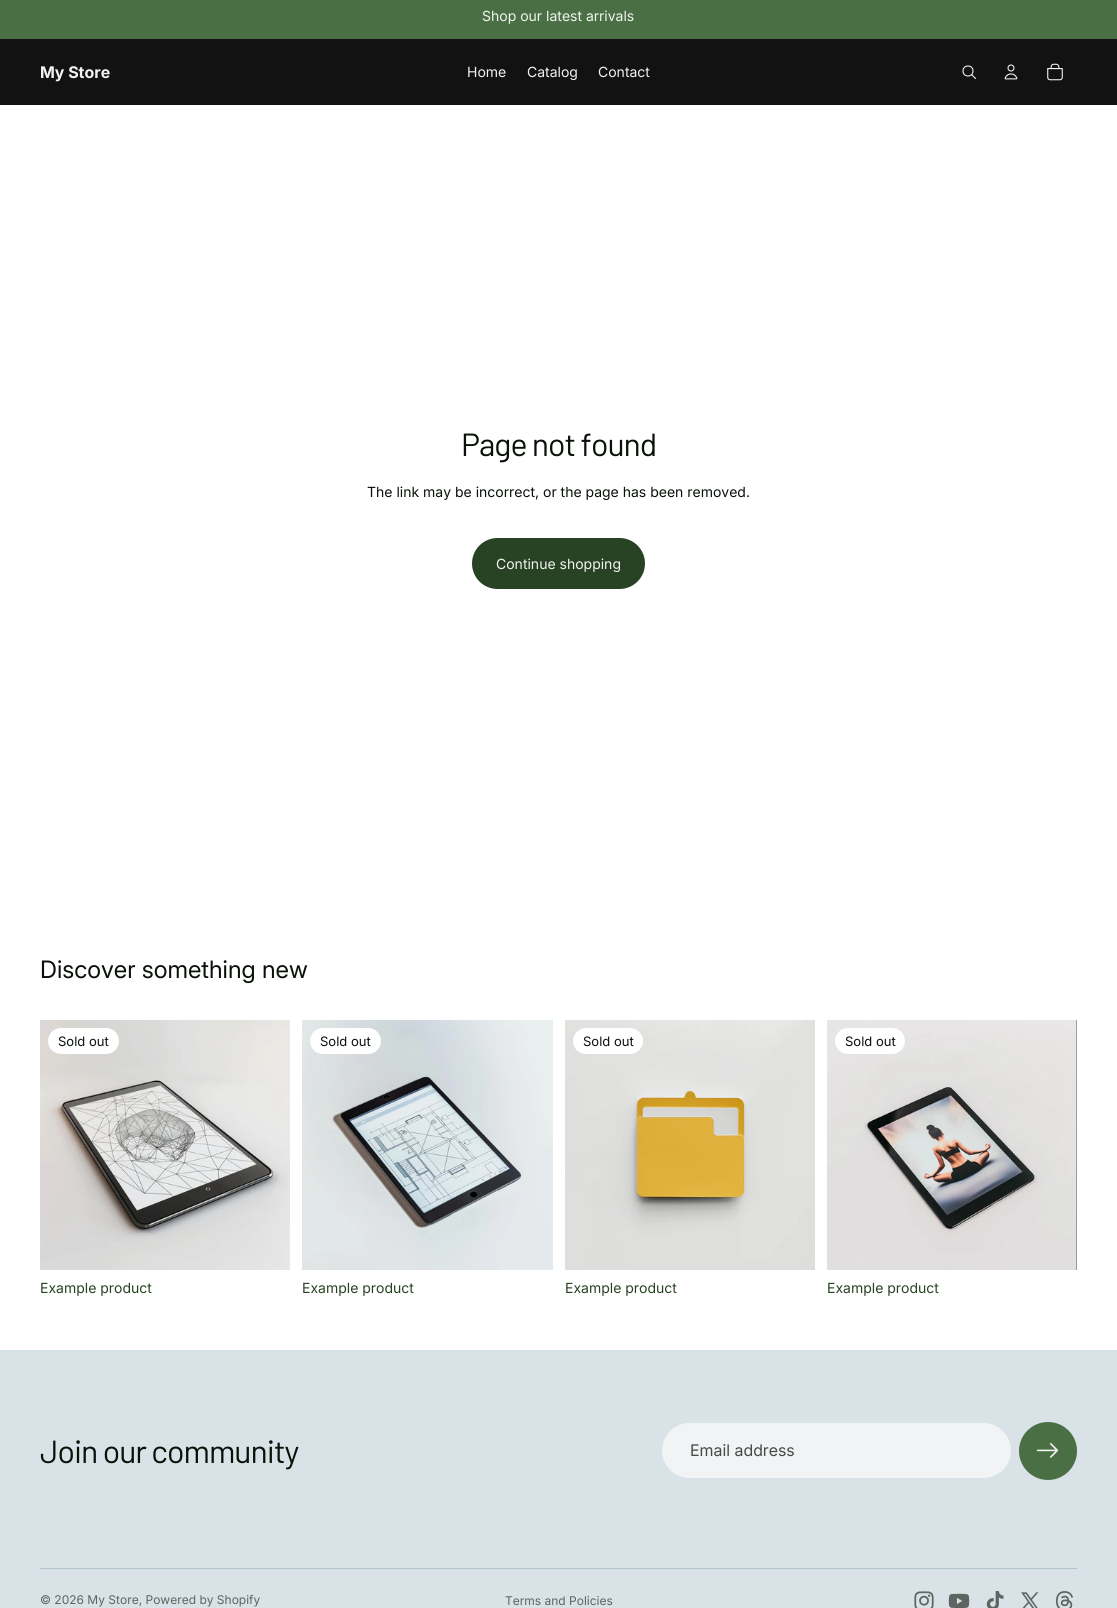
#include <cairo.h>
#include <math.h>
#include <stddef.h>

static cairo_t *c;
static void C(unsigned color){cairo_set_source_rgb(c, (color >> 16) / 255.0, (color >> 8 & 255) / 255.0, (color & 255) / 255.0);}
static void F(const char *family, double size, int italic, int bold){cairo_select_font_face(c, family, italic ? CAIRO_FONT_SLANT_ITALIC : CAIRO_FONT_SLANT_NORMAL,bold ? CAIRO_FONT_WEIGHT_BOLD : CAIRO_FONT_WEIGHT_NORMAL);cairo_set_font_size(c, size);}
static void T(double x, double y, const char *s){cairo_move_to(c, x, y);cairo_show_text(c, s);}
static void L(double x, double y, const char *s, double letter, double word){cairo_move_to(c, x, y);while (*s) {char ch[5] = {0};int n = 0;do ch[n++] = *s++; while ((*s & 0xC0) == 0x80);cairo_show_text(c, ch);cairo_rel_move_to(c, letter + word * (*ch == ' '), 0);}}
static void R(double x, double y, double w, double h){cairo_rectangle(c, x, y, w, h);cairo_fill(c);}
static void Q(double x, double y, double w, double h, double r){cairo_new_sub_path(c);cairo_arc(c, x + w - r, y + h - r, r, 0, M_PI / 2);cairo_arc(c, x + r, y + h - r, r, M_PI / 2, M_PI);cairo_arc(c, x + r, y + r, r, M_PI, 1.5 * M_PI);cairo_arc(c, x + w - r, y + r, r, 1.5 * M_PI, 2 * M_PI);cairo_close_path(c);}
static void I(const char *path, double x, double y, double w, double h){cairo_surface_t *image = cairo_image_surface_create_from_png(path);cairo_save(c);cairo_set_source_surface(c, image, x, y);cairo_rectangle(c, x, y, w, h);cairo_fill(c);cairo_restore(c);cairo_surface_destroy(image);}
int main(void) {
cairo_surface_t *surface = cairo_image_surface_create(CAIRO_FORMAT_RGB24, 1117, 1608);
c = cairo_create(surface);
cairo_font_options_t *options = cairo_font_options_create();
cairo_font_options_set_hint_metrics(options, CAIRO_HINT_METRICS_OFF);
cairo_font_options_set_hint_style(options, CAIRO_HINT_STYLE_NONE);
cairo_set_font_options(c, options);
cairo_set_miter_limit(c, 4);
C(0xffffff);
cairo_paint(c);
C(0x4b6f44);
R(0,0,1117,39);
F("Inter",14,0,0);
C(0xf1f4f0);
T(482,21,"Shop our latest arrivals");
C(0x121212);
R(0,39,1117,66);
F("Inter",16,0,1);
C(0xf1f4f0);
T(40,78,"My Store");
F("Inter",14,0,0);
T(467,77,"Home");
T(527,77,"Catalog");
T(598,77,"Contact");
cairo_new_path(c);
cairo_arc(c,968,71,5,0,2 * M_PI);
cairo_set_line_width(c,1.1);
cairo_stroke(c);
cairo_new_path(c);
cairo_move_to(c,972,75);
cairo_line_to(c,975.5,78.5);
cairo_set_line_cap(c,CAIRO_LINE_CAP_ROUND);
cairo_set_line_join(c,CAIRO_LINE_JOIN_ROUND);
cairo_stroke(c);
I("1.png",1004,64,14,16);
I("2.png",1047,63,16,18);
F("Barlow",32,0,0);
C(0x0a1109);
L(461,456,"Page not found",-1,0);
F("Inter",14,0,0);
T(367,497,"The link may be incorrect, or the page has been removed.");
C(0x284323);
Q(472,538,173,51,25.5);
cairo_fill(c);
C(0xf1f4f0);
T(496,569,"Continue shopping");
F("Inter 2",24,0,0);
C(0x0a1109);
T(40,978,"Discover something new");
I("3.png",40,1020,250,250);
C(0xffffff);
Q(48,1028,71,26,13);
cairo_fill(c);
F("Inter",13,0,0);
C(0x0a1109);
T(58,1046,"Sold out");
F("Inter",14,0,0);
C(0x284323);
T(40,1293,"Example product");
I("4.png",302,1020,251,250);
C(0xffffff);
Q(310,1028,71,26,13);
cairo_fill(c);
F("Inter",13,0,0);
C(0x0a1109);
T(320,1046,"Sold out");
F("Inter",14,0,0);
C(0x284323);
T(302,1293,"Example product");
I("5.png",565,1020,250,250);
C(0xffffff);
Q(573,1028,70,26,13);
cairo_fill(c);
F("Inter",13,0,0);
C(0x0a1109);
T(583,1046,"Sold out");
F("Inter",14,0,0);
C(0x284323);
T(565,1293,"Example product");
I("6.png",827,1020,250,250);
C(0xffffff);
Q(835,1028,70,26,13);
cairo_fill(c);
F("Inter",13,0,0);
C(0x0a1109);
T(845,1046,"Sold out");
F("Inter",14,0,0);
C(0x284323);
T(827,1293,"Example product");
C(0xd9e2e6);
R(0,1350,1117,258);
F("Barlow",32,0,0);
C(0x0a1109);
L(40,1463,"Join our community",-1,0);
C(0xf1f3f4);
Q(662,1423,349,55,27.5);
cairo_fill(c);
F("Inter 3",16,0,0);
C(0x484949);
T(690,1456,"Email address");
C(0x4b6f44);
cairo_new_path(c);
cairo_arc(c,1048,1451,29,0,2 * M_PI);
cairo_fill(c);
I("7.png",1036,1443,23,15);
C(0xb2c5cd);
R(40,1568,1037,1);
F("Inter",12,0,0);
C(0x5d6561);
T(40,1604,"© 2026 My Store, Powered by Shopify");
T(505,1605,"Terms and Policies");
I("8.png",914,1591,20,17);
I("9.png",948,1593,22,15);
I("10.png",986,1591,18,17);
I("11.png",1021,1592,18,16);
I("12.png",1056,1591,17,17);
cairo_surface_write_to_png(surface, "o.png");
cairo_font_options_destroy(options);
cairo_destroy(c);
cairo_surface_destroy(surface);
return 0;
}
